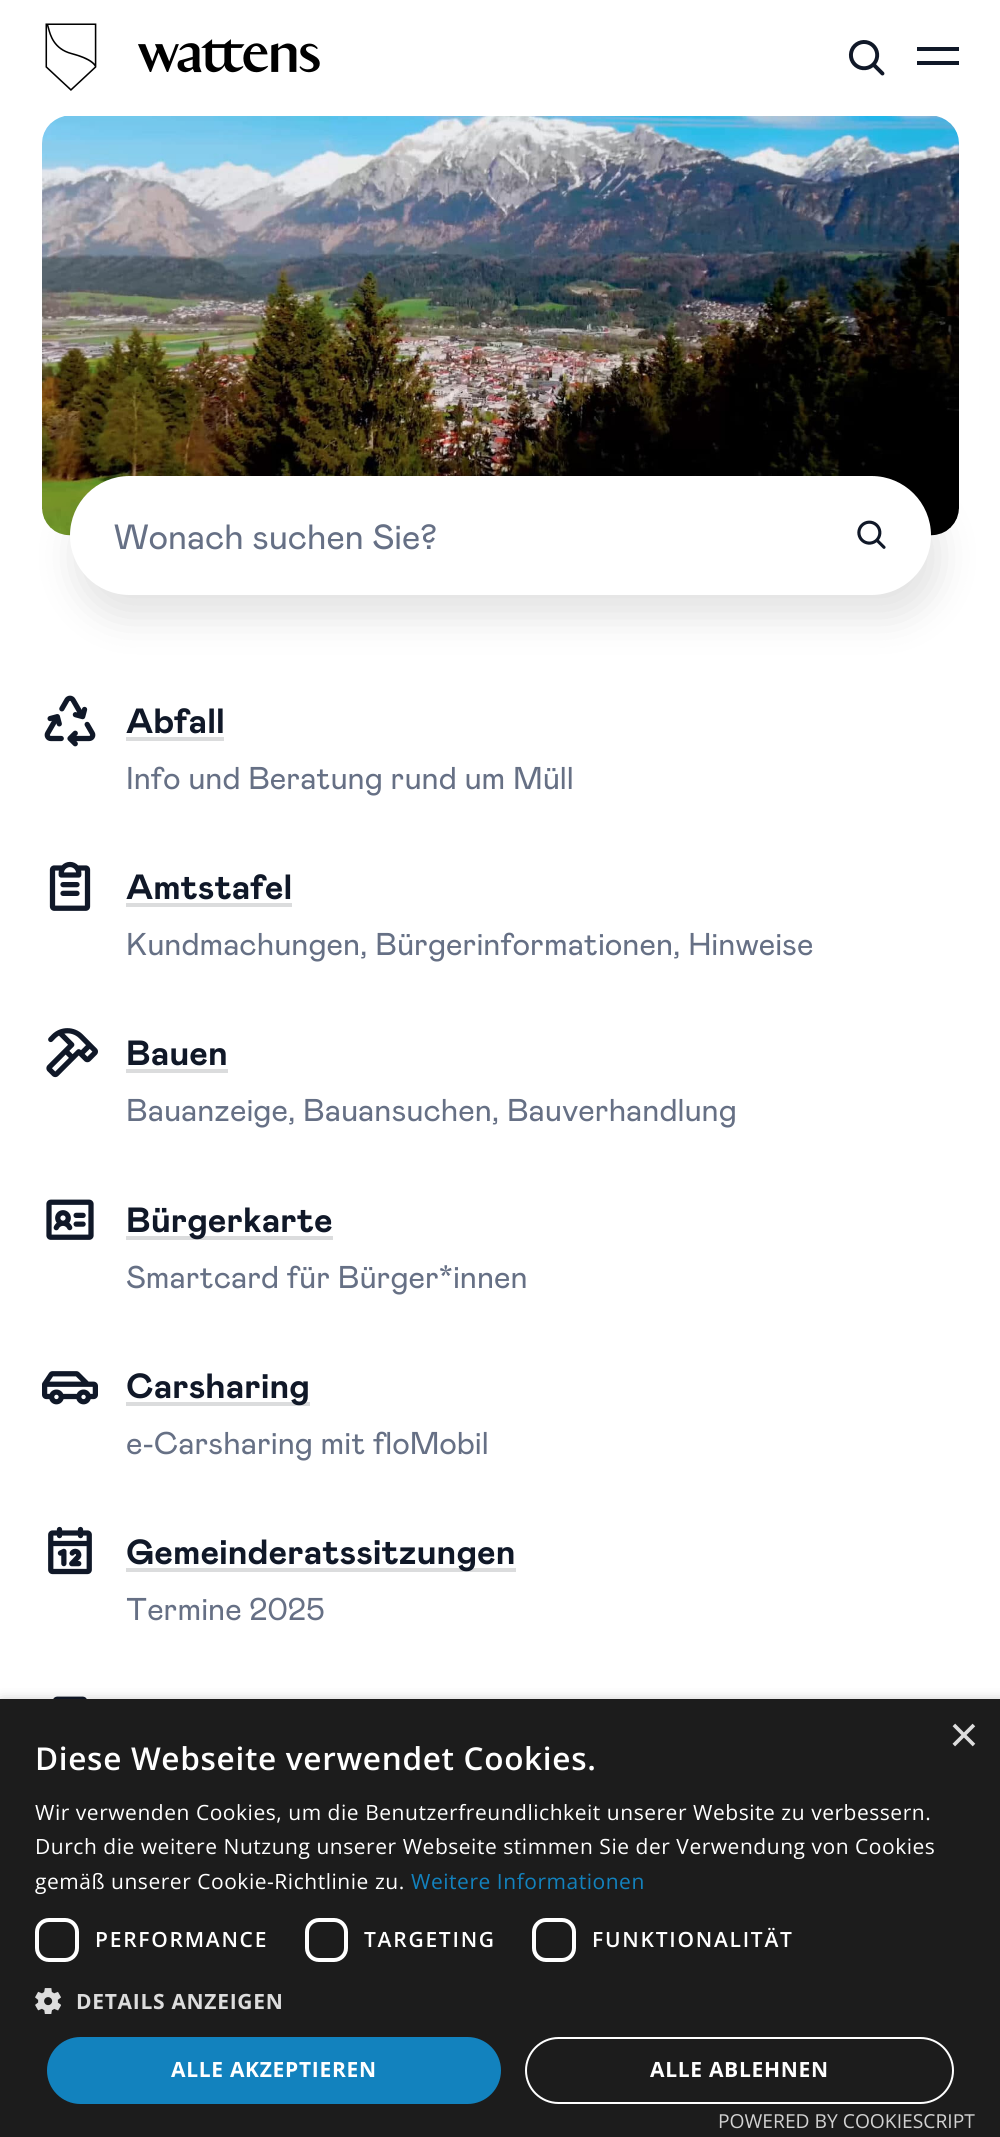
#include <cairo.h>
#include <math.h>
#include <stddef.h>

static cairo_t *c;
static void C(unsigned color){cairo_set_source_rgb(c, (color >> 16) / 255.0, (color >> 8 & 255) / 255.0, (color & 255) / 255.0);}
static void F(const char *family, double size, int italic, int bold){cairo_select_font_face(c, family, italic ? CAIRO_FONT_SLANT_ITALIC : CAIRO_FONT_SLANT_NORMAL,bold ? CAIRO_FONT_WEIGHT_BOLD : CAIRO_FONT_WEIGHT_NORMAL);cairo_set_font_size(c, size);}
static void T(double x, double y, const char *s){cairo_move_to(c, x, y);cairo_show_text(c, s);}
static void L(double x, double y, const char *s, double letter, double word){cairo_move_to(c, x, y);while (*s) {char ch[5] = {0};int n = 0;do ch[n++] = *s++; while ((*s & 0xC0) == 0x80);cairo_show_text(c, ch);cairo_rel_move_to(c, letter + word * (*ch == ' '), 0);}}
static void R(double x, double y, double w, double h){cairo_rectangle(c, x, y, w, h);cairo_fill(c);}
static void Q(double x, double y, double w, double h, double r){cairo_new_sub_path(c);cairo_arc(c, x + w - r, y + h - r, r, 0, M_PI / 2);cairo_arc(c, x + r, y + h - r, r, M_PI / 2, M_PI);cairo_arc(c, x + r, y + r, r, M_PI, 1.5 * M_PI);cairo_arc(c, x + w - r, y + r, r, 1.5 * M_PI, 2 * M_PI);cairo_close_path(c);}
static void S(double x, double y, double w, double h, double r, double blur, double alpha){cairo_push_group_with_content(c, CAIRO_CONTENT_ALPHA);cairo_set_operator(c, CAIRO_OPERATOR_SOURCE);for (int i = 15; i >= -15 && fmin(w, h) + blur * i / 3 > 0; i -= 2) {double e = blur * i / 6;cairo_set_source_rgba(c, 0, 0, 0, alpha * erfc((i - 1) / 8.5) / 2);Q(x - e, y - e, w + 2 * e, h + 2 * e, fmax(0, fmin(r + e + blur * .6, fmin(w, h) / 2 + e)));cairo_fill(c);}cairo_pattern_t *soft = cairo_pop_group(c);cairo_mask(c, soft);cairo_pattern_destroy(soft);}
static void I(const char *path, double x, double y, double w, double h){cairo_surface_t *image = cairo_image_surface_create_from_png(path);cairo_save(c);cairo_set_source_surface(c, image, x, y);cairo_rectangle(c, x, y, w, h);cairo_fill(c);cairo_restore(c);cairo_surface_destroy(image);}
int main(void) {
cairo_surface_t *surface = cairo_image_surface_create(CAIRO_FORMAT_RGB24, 1000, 2137);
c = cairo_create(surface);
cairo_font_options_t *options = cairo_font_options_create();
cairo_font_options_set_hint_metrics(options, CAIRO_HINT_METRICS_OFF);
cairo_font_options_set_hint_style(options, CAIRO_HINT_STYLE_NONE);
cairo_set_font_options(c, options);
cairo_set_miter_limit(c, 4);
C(0xffffff);
cairo_paint(c);
I("1.png",45,23,275,68);
I("2.png",848,40,37,36);
C(0x101828);
R(917,47,42,4);
R(917,61,42,4);
I("3.png",42,116,917,420);
C(0x000000);
S(77,497,861,119,59.5,21,.12);
C(0xffffff);
Q(70,476,861,119,59.5);
cairo_fill(c);
F("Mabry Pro",35,0,0);
C(0x667085);
T(114,549,"Wonach suchen Sie?");
I("4.png",857,520,29,29);
I("5.png",44,695,52,52);
F("Mabry Pro",35,0,1);
C(0x101828);
T(126,733,"Abfall");
C(0xdbdcdd);
R(126,737,98,4);
F("Mabry Pro",31.5,0,0);
C(0x667085);
T(126,789,"Info und Beratung rund um Müll");
I("6.png",49,861,42,50);
F("Mabry Pro",35,0,1);
C(0x101828);
T(126,899,"Amtstafel");
C(0xdbdcdd);
R(126,903,166,4);
F("Mabry Pro",31.5,0,0);
C(0x667085);
T(126,955,"Kundmachungen, Bürgerinformationen, Hinweise");
I("7.png",46,1028,52,50);
F("Mabry Pro",35,0,1);
C(0x101828);
T(126,1065,"Bauen");
C(0xdbdcdd);
R(126,1069,102,4);
F("Mabry Pro",31.5,0,0);
C(0x667085);
T(126,1121,"Bauanzeige, Bauansuchen, Bauverhandlung");
I("8.png",46,1199,48,41);
C(0xdbdcdd);
R(126,1236,207,4);
F("Mabry Pro",35,0,1);
C(0x101828);
T(126,1232,"Bürgerkarte");
F("Mabry Pro",31.5,0,0);
C(0x667085);
T(126,1288,"Smartcard für Bürger*innen");
I("9.png",42,1371,56,34);
C(0xdbdcdd);
R(126,1402,184,4);
F("Mabry Pro",35,0,1);
C(0x101828);
T(126,1398,"Carsharing");
F("Mabry Pro",31.5,0,0);
C(0x667085);
T(126,1454,"e-Carsharing mit floMobil");
I("10.png",48,1526,44,49);
C(0xdbdcdd);
R(126,1568,390,4);
F("Mabry Pro",35,0,1);
C(0x101828);
T(126,1564,"Gemeinderatssitzungen");
F("Mabry Pro",31.5,0,0);
C(0x667085);
T(126,1620,"Termine 2025");
I("11.png",53,1696,34,3);
C(0x000000);
S(2,1703,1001,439,0,7,.35);
C(0x1c1c1c);
R(0,1699,1000,438);
F("Liberation Sans",51,0,0);
C(0xdddddd);
T(949,1752,"×");
F("Open Sans SemiBold",31.5,0,0);
C(0xffffff);
L(35,1770,"Diese Webseite verwendet Cookies.",.7,0);
F("Open Sans",21,0,0);
L(35,1820,"Wir verwenden Cookies, um die Benutzerfreundlichkeit unserer Website zu verbessern.",.53,0);
L(35,1854,"Durch die weitere Nutzung unserer Webseite stimmen Sie der Verwendung von Cookies",.53,0);
L(35,1889,"gemäß unserer Cookie-Richtlinie zu.",.53,0);
C(0x1282be);
L(411,1889,"Weitere Informationen",.53,0);
Q(37,1920,40,40,12);
C(0xffffff);
cairo_set_line_width(c,4);
cairo_stroke(c);
F("Open Sans SemiBold",21,0,0);
L(95,1947,"PERFORMANCE",1.75,0);
Q(307,1920,39,40,12);
cairo_stroke(c);
L(364,1947,"TARGETING",1.75,0);
Q(534,1920,40,40,12);
cairo_stroke(c);
L(592,1947,"FUNKTIONALITÄT",1.75,0);
I("12.png",35,1988,26,26);
F("Open Sans",21,0,1);
C(0xdddddd);
L(76,2009,"DETAILS ANZEIGEN",.7,0);
C(0x1282be);
Q(47,2037,454,67,33.5);
cairo_fill(c);
C(0xffffff);
L(171,2077,"ALLE AKZEPTIEREN",.7,0);
Q(526,2038,427,65,32.5);
cairo_set_line_width(c,2);
cairo_stroke(c);
L(650,2077,"ALLE ABLEHNEN",.7,0);
F("Open Sans",19.25,0,0);
C(0xd2d2d2);
T(718,2128,"POWERED BY COOKIESCRIPT");
cairo_surface_write_to_png(surface, "o.png");
cairo_font_options_destroy(options);
cairo_destroy(c);
cairo_surface_destroy(surface);
return 0;
}
